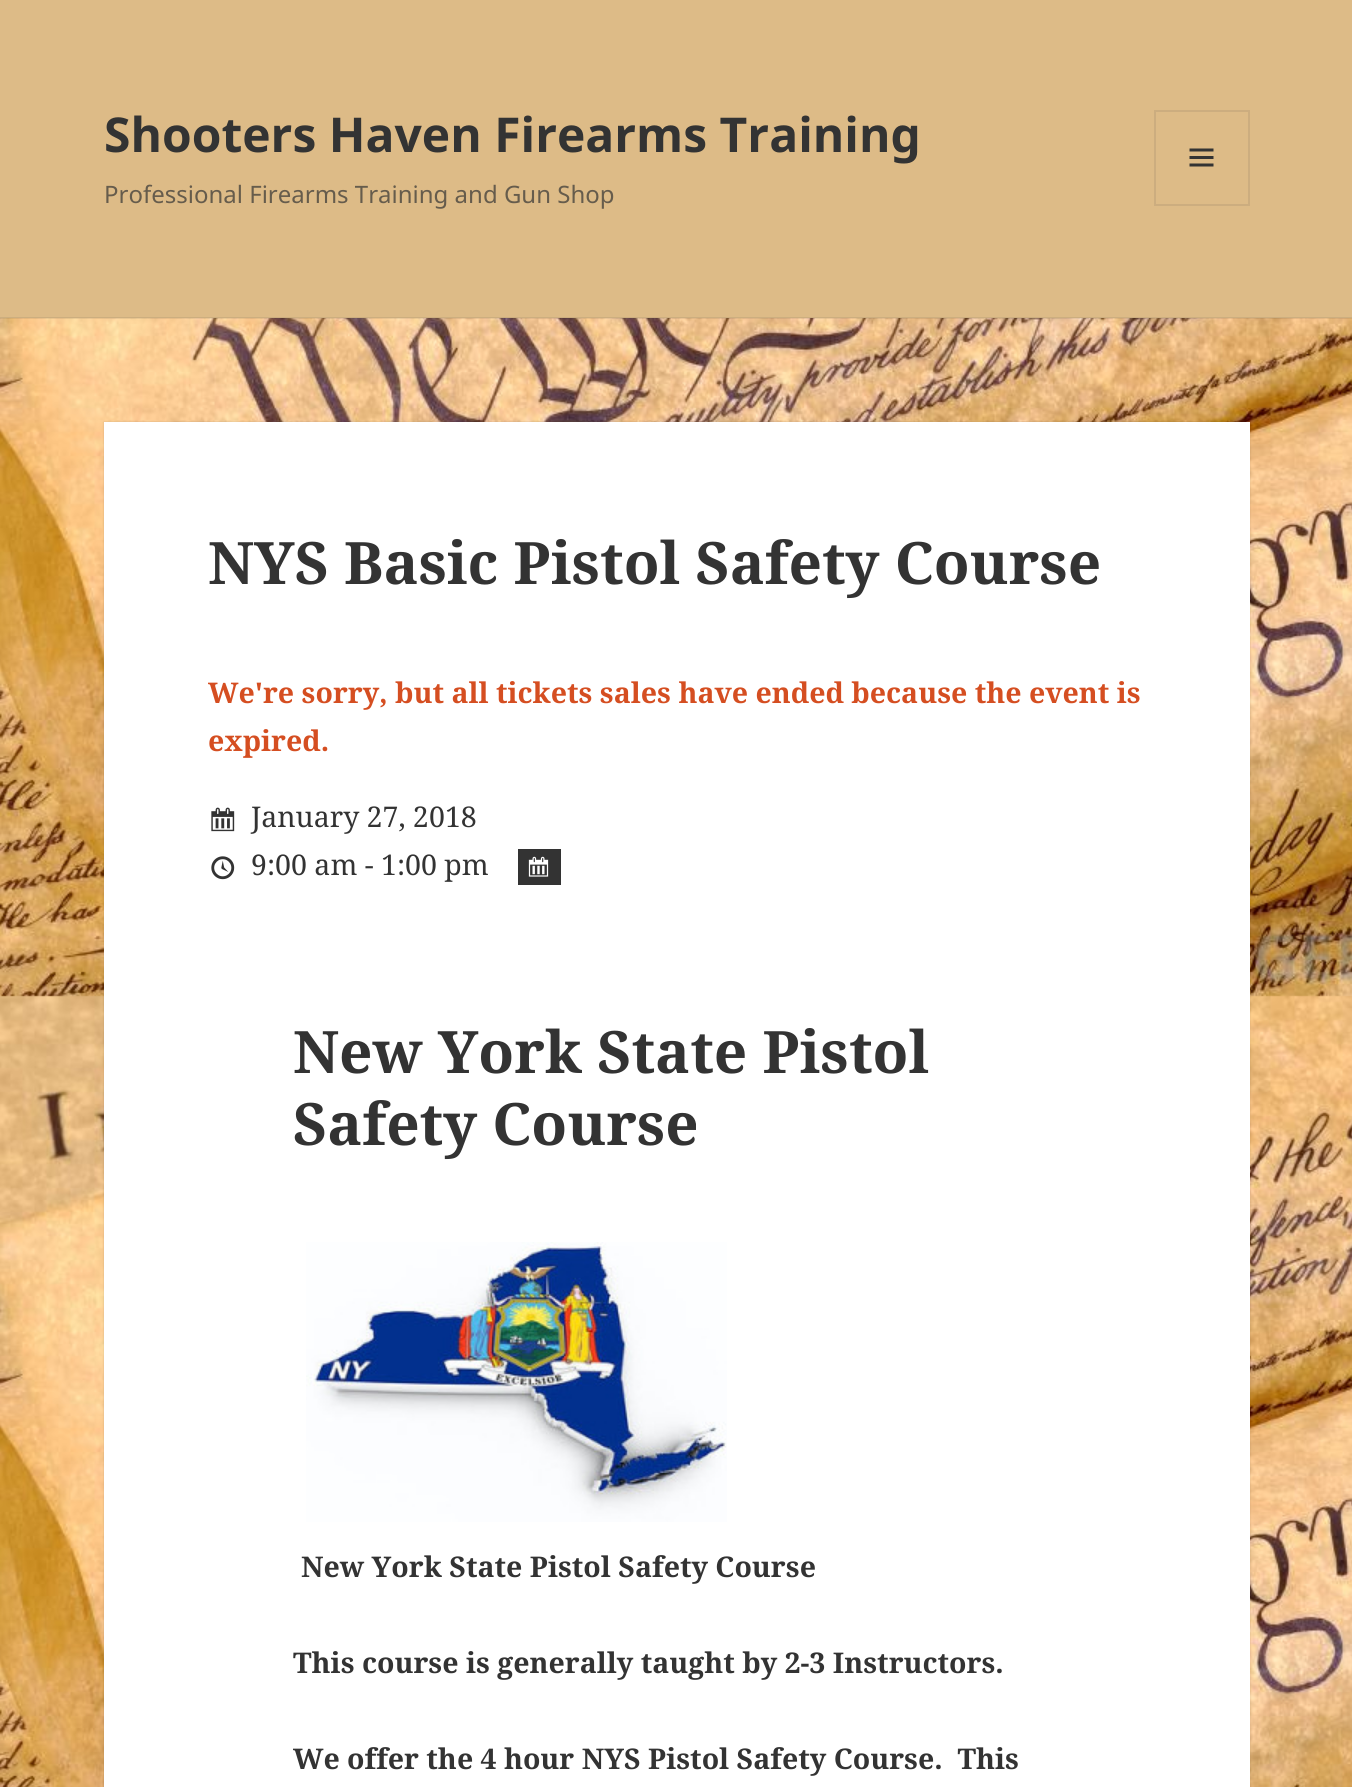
#include <cairo.h>
#include <math.h>
#include <stddef.h>

static cairo_t *c;
static void C(unsigned color){cairo_set_source_rgb(c, (color >> 16) / 255.0, (color >> 8 & 255) / 255.0, (color & 255) / 255.0);}
static void F(const char *family, double size, int italic, int bold){cairo_select_font_face(c, family, italic ? CAIRO_FONT_SLANT_ITALIC : CAIRO_FONT_SLANT_NORMAL,bold ? CAIRO_FONT_WEIGHT_BOLD : CAIRO_FONT_WEIGHT_NORMAL);cairo_set_font_size(c, size);}
static void T(double x, double y, const char *s){cairo_move_to(c, x, y);cairo_show_text(c, s);}
static void R(double x, double y, double w, double h){cairo_rectangle(c, x, y, w, h);cairo_fill(c);}
static void Q(double x, double y, double w, double h, double r){cairo_new_sub_path(c);cairo_arc(c, x + w - r, y + h - r, r, 0, M_PI / 2);cairo_arc(c, x + r, y + h - r, r, M_PI / 2, M_PI);cairo_arc(c, x + r, y + r, r, M_PI, 1.5 * M_PI);cairo_arc(c, x + w - r, y + r, r, 1.5 * M_PI, 2 * M_PI);cairo_close_path(c);}
static void S(double x, double y, double w, double h, double r, double blur, double alpha){cairo_push_group_with_content(c, CAIRO_CONTENT_ALPHA);cairo_set_operator(c, CAIRO_OPERATOR_SOURCE);for (int i = 15; i >= -15 && fmin(w, h) + blur * i / 3 > 0; i -= 2) {double e = blur * i / 6;cairo_set_source_rgba(c, 0, 0, 0, alpha * erfc((i - 1) / 8.5) / 2);Q(x - e, y - e, w + 2 * e, h + 2 * e, fmax(0, fmin(r + e + blur * .6, fmin(w, h) / 2 + e)));cairo_fill(c);}cairo_pattern_t *soft = cairo_pop_group(c);cairo_mask(c, soft);cairo_pattern_destroy(soft);}
static void I(const char *path, double x, double y, double w, double h){cairo_surface_t *image = cairo_image_surface_create_from_png(path);cairo_save(c);cairo_set_source_surface(c, image, x, y);cairo_rectangle(c, x, y, w, h);cairo_fill(c);cairo_restore(c);cairo_surface_destroy(image);}
int main(void) {
cairo_surface_t *surface = cairo_image_surface_create(CAIRO_FORMAT_RGB24, 1352, 1787);
c = cairo_create(surface);
cairo_font_options_t *options = cairo_font_options_create();
cairo_font_options_set_hint_metrics(options, CAIRO_HINT_METRICS_OFF);
cairo_font_options_set_hint_style(options, CAIRO_HINT_STYLE_NONE);
cairo_set_font_options(c, options);
cairo_set_miter_limit(c, 4);
C(0xffffff);
cairo_paint(c);
I("1.png",0,318,1352,1469);
C(0xddbb87);
R(0,0,1352,318);
cairo_set_source_rgba(c,0.2,0.2,0.2,0.1);
R(0,317,1352,2);
F("Noto Sans",48,0,1);
C(0x333333);
T(104,152,"Shooters Haven Firearms Training");
cairo_rectangle(c,1155,111,94,94);
C(0xccad7f);
cairo_stroke(c);
I("2.png",1189,148,25,19);
F("Noto Sans",24,0,0);
C(0x665c4c);
T(104,203,"Professional Firearms Training and Gun Shop");
C(0x000000);
S(104,422,1146,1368,0,1,.15);
C(0xffffff);
R(104,422,1146,1365);
F("Noto Serif",58.5,0,1);
C(0x333333);
T(208,584,"NYS Basic Pistol Safety Course");
F("Noto Serif",28.5,0,1);
C(0xd54e21);
T(208,703,"We're sorry, but all tickets sales have ended because the event is");
T(208,751,"expired.");
I("3.png",211,807,24,25);
F("Noto Serif",28.5,0,0);
C(0x333333);
T(251,827,"January 27, 2018");
I("4.png",211,856,24,24);
T(251,875,"9:00 am - 1:00 pm");
R(518,849,43,36);
I("5.png",528,856,21,21);
F("Noto Serif",58.5,0,1);
T(293,1073,"New York State Pistol");
T(293,1145,"Safety Course");
I("6.png",306,1242,421,280);
F("Noto Serif",28.5,0,1);
T(301,1577,"New York State Pistol Safety Course");
T(293,1673,"This course is generally taught by 2-3 Instructors.");
T(293,1769,"We offer the 4 hour NYS Pistol Safety Course.  This");
cairo_surface_write_to_png(surface, "o.png");
cairo_font_options_destroy(options);
cairo_destroy(c);
cairo_surface_destroy(surface);
return 0;
}
